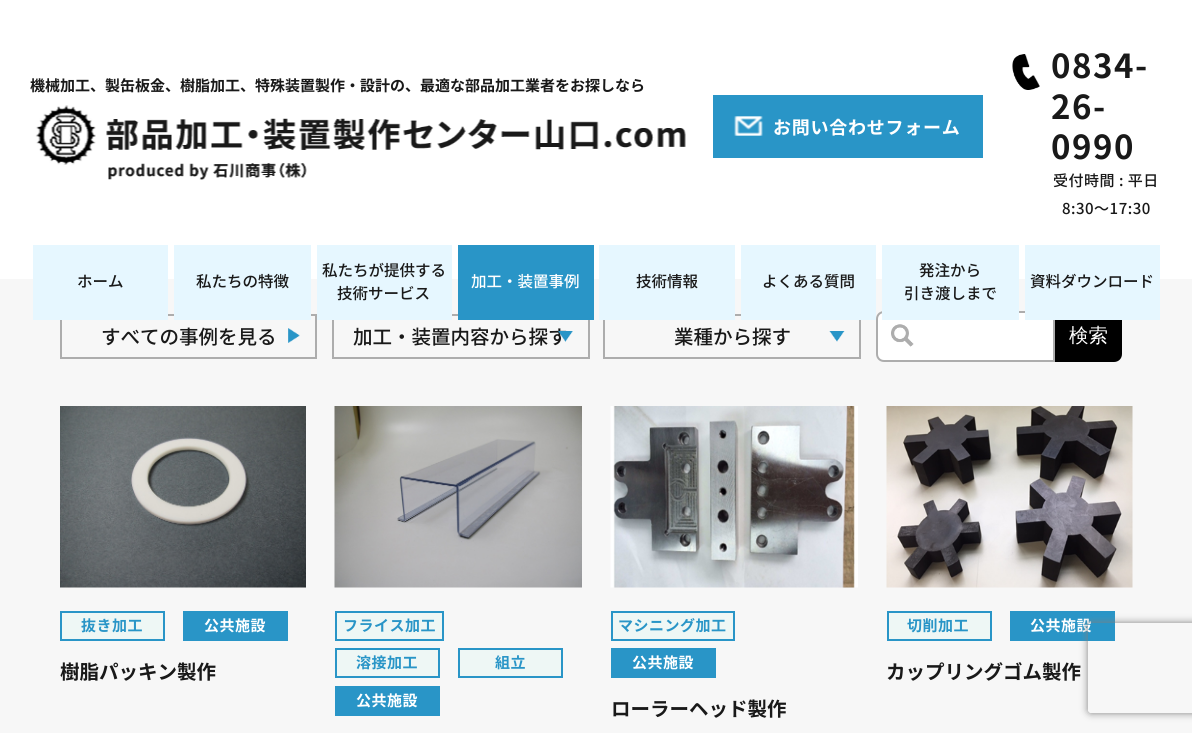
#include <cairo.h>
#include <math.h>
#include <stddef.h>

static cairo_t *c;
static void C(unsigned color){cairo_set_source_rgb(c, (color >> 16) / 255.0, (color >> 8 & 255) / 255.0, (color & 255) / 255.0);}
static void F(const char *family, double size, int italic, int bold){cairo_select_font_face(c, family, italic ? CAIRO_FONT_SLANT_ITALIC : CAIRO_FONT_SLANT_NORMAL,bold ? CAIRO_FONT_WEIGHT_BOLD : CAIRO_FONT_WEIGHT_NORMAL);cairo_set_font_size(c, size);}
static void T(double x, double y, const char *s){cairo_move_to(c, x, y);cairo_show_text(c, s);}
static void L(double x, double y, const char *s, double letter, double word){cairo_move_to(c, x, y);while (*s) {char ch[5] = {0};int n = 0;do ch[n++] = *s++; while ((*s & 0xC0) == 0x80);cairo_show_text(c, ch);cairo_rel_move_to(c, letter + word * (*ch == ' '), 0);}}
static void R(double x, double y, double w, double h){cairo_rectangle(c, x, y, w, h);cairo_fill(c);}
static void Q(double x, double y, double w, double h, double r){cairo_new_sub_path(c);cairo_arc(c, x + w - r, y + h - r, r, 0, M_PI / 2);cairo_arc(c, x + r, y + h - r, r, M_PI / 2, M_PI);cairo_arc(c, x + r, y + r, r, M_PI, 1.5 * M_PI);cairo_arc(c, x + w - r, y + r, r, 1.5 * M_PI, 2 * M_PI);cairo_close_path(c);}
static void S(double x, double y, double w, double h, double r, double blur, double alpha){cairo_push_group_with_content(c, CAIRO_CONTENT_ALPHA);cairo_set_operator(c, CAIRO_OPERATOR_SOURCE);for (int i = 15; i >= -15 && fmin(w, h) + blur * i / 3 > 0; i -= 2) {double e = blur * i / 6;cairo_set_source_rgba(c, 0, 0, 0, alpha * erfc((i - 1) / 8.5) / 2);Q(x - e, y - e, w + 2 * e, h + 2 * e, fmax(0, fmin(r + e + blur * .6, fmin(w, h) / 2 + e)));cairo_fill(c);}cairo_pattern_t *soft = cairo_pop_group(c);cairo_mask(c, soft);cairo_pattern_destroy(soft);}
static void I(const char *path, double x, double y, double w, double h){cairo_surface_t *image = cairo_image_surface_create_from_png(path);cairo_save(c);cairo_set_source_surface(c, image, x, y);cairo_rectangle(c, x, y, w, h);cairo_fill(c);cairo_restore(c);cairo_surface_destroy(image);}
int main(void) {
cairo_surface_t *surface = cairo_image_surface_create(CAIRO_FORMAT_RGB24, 1192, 733);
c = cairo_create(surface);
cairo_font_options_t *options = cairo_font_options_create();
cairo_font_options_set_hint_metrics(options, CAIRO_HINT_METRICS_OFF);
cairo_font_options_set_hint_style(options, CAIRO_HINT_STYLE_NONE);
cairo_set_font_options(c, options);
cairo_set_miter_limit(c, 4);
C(0xf7f7f7);
cairo_paint(c);
C(0xffffff);
R(0,0,1192,279);
F("Noto Sans JP",15,0,1);
C(0x191919);
T(30,91,"機械加工、製缶板金、樹脂加工、特殊装置製作・設計の、最適な部品加工業者をお探しなら");
I("1.png",35,105,651,75);
C(0x2995c7);
R(713,95,270,63);
I("2.png",734,116,29,20);
F("Noto Sans JP",18,0,1);
C(0xffffff);
L(773,134,"お問い合わせフォーム",.75,0);
I("3.png",1012,54,28,36);
F("Noto Sans JP",33,0,1);
C(0x191919);
L(1051,78,"0834-",1.5,0);
L(1051,119,"26-",1.5,0);
L(1051,159,"0990",1.5,0);
F("Noto Sans JP Medium",15,0,0);
L(1053,186,"受付時間 : 平日",.5,0);
L(1062,214,"8:30～17:30",.5,0);
cairo_rectangle(c,61,315,255,43);
C(0xadadad);
cairo_stroke(c);
C(0xe6f7ff);
R(33,245,135,75);
F("Noto Sans JP Medium",15.5,0,0);
C(0x191919);
T(77,287,"ホーム");
C(0xe6f7ff);
R(174,245,137,75);
C(0x191919);
T(196,287,"私たちの特徴");
cairo_rectangle(c,333,315,256,43);
C(0xadadad);
cairo_stroke(c);
C(0xe6f7ff);
R(317,245,135,75);
C(0x191919);
T(322,276,"私たちが提供する");
T(337,299,"技術サービス");
C(0x2995c7);
R(458,245,136,75);
C(0xffffff);
T(471,287,"加工・装置事例");
cairo_rectangle(c,604,315,256,43);
C(0xadadad);
cairo_stroke(c);
C(0xe6f7ff);
R(599,245,136,75);
C(0x191919);
T(636,287,"技術情報");
C(0xe6f7ff);
R(741,245,135,75);
C(0x191919);
T(762,287,"よくある質問");
C(0xffffff);
cairo_new_path(c);
cairo_move_to(c,884,312);
cairo_line_to(c,1054,312);
cairo_line_to(c,1054,361);
cairo_line_to(c,884,361);
cairo_curve_to(c,880,361,877,358,877,354);
cairo_line_to(c,877,319);
cairo_curve_to(c,877,315,880,312,884,312);
cairo_close_path(c);
cairo_fill_preserve(c);
C(0xadadad);
cairo_stroke(c);
C(0xe6f7ff);
R(882,245,137,75);
C(0x191919);
T(919,276,"発注から");
T(904,299,"引き渡しまで");
C(0x000000);
cairo_new_path(c);
cairo_move_to(c,1056,312);
cairo_line_to(c,1114,312);
cairo_curve_to(c,1118,312,1121,315,1121,319);
cairo_line_to(c,1121,354);
cairo_curve_to(c,1121,358,1118,361,1114,361);
cairo_line_to(c,1056,361);
cairo_close_path(c);
cairo_fill_preserve(c);
cairo_stroke(c);
C(0xe6f7ff);
R(1025,245,135,75);
C(0x191919);
T(1030,287,"資料ダウンロード");
F("Noto Sans JP Medium",19.5,0,0);
T(101,344,"すべての事例を見る");
I("4.png",288,328,12,15);
T(353,344,"加工・装置内容から探す");
I("5.png",558,331,15,11);
T(674,344,"業種から探す");
I("6.png",829,331,16,11);
I("7.png",891,324,23,23);
F("WenQuanYi Zen Hei Medium",19.5,0,0);
C(0xffffff);
T(1069,342,"検索");
I("8.png",60,406,246,182);
C(0xeef7f5);
cairo_rectangle(c,61,612,103,28);
cairo_fill_preserve(c);
C(0x2995c7);
cairo_stroke(c);
F("Noto Sans JP",15,0,1);
L(81,631,"抜き加工",.5,0);
R(183,611,105,30);
C(0xffffff);
L(204,631,"公共施設",.5,0);
F("Noto Sans JP",19.5,0,1);
C(0x191919);
T(60,679,"樹脂パッキン製作");
I("9.png",334,406,248,182);
C(0xeef7f5);
cairo_rectangle(c,336,612,107,28);
cairo_fill_preserve(c);
C(0x2995c7);
cairo_stroke(c);
F("Noto Sans JP",15,0,1);
L(343,631,"フライス加工",.5,0);
C(0xeef7f5);
cairo_rectangle(c,336,649,103,28);
cairo_fill_preserve(c);
C(0x2995c7);
cairo_stroke(c);
L(356,668,"溶接加工",.5,0);
C(0xeef7f5);
cairo_rectangle(c,459,649,103,28);
cairo_fill_preserve(c);
C(0x2995c7);
cairo_stroke(c);
L(495,668,"組立",.5,0);
R(335,686,105,30);
C(0xffffff);
L(356,706,"公共施設",.5,0);
I("10.png",610,406,248,182);
C(0xeef7f5);
cairo_rectangle(c,612,612,122,28);
cairo_fill_preserve(c);
C(0x2995c7);
cairo_stroke(c);
L(618,631,"マシニング加工",.5,0);
R(611,648,105,30);
C(0xffffff);
L(632,668,"公共施設",.5,0);
F("Noto Sans JP",19.5,0,1);
C(0x191919);
T(611,716,"ローラーヘッド製作");
I("11.png",886,406,247,182);
C(0xeef7f5);
cairo_rectangle(c,888,612,103,28);
cairo_fill_preserve(c);
C(0x2995c7);
cairo_stroke(c);
F("Noto Sans JP",15,0,1);
L(907,631,"切削加工",.5,0);
R(1010,611,105,30);
C(0xffffff);
L(1030,631,"公共施設",.5,0);
F("Noto Sans JP",19.5,0,1);
C(0x191919);
T(886,679,"カップリングゴム製作");
cairo_save(c);
cairo_set_fill_rule(c,CAIRO_FILL_RULE_EVEN_ODD);
cairo_new_path(c);
cairo_move_to(c,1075,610);
cairo_line_to(c,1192,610);
cairo_line_to(c,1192,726);
cairo_line_to(c,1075,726);
cairo_close_path(c);
cairo_move_to(c,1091,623);
cairo_line_to(c,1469,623);
cairo_curve_to(c,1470.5,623,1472,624.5,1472,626);
cairo_line_to(c,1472,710);
cairo_curve_to(c,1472,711.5,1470.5,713,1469,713);
cairo_line_to(c,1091,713);
cairo_curve_to(c,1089.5,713,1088,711.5,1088,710);
cairo_line_to(c,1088,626);
cairo_curve_to(c,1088,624.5,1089.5,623,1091,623);
cairo_close_path(c);
cairo_clip(c);
C(0x808080);
S(1088,623,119,90,3,4,1);
cairo_restore(c);
cairo_surface_write_to_png(surface, "o.png");
cairo_font_options_destroy(options);
cairo_destroy(c);
cairo_surface_destroy(surface);
return 0;
}
